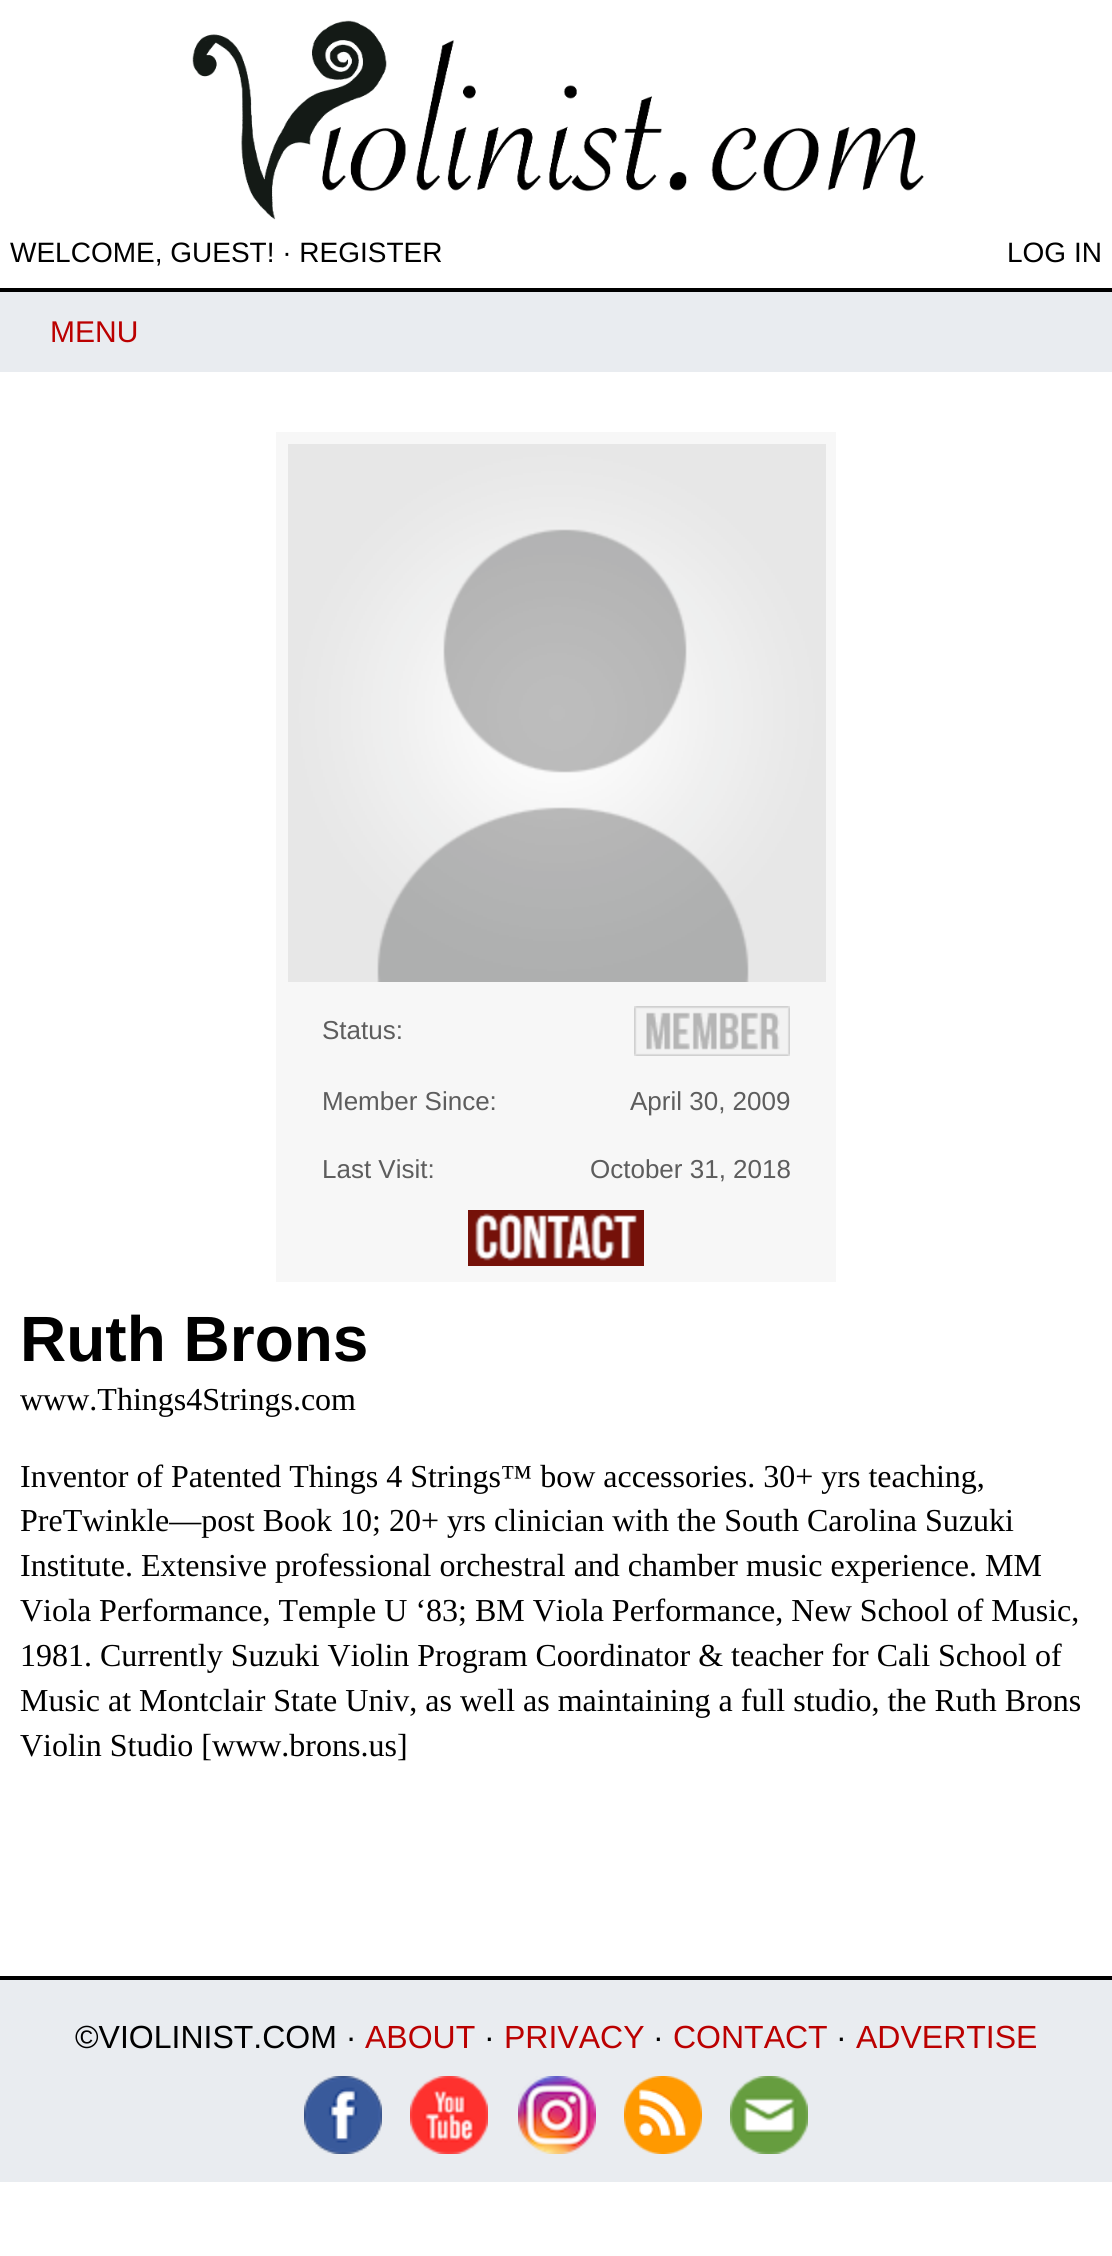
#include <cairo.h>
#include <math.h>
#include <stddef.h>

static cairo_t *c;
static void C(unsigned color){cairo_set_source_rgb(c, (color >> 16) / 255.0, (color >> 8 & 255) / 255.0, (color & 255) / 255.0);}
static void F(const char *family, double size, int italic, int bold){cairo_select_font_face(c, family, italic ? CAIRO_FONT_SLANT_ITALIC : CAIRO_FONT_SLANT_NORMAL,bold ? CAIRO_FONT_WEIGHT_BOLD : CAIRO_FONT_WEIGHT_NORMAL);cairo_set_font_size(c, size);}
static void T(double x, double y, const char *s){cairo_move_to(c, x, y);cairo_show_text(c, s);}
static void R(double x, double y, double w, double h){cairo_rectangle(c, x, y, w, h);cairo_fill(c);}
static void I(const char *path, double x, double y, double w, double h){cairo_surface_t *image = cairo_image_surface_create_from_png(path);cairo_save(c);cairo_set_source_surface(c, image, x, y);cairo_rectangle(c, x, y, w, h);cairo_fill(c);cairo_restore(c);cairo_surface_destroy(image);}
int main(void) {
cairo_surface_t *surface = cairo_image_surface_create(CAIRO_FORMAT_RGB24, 1112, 2256);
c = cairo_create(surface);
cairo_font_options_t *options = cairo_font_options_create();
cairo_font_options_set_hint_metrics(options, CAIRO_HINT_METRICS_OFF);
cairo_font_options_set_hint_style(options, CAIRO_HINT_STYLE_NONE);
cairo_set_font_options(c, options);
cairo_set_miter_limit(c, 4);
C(0xffffff);
cairo_paint(c);
I("1.png",192,20,732,200);
F("Liberation Sans",28,0,0);
C(0x000000);
T(10,262,"WELCOME, GUEST! · REGISTER");
T(1007,262,"LOG IN");
C(0xe9ecf0);
R(0,292,1112,80);
C(0x000000);
R(0,288,1112,4);
F("Liberation Sans",30,0,0);
C(0xbb0000);
T(50,342,"MENU");
C(0xf7f7f7);
R(276,432,560,850);
I("2.png",288,444,538,538);
F("Liberation Sans",26,0,0);
C(0x5d5d5d);
T(322,1039,"Status:");
I("3.png",634,1006,156,50);
T(322,1110,"Member Since:");
T(630,1110,"April 30, 2009");
T(322,1178,"Last Visit:");
T(590,1178,"October 31, 2018");
I("4.png",468,1210,176,56);
F("Liberation Sans",64,0,1);
C(0x000000);
T(20,1361,"Ruth Brons");
F("Liberation Serif",32,0,0);
T(20,1410,"www.Things4Strings.com");
T(20,1487,"Inventor of Patented Things 4 Strings™ bow accessories. 30+ yrs teaching,");
T(20,1531,"PreTwinkle—post Book 10; 20+ yrs clinician with the South Carolina Suzuki");
T(20,1576,"Institute. Extensive professional orchestral and chamber music experience. MM");
T(20,1621,"Viola Performance, Temple U ‘83; BM Viola Performance, New School of Music,");
T(20,1666,"1981. Currently Suzuki Violin Program Coordinator & teacher for Cali School of");
T(20,1711,"Music at Montclair State Univ, as well as maintaining a full studio, the Ruth Brons");
T(20,1756,"Violin Studio [www.brons.us]");
C(0xe9ecf0);
R(0,1980,1112,202);
C(0x000000);
R(0,1976,1112,4);
F("Liberation Sans",32,0,0);
T(75,2048,"©VIOLINIST.COM ·");
C(0xbb0000);
T(365,2048,"ABOUT");
C(0x000000);
T(484,2048,"·");
C(0xbb0000);
T(504,2048,"PRIVACY");
C(0x000000);
T(653,2048,"·");
C(0xbb0000);
T(673,2048,"CONTACT");
C(0x000000);
T(836,2048,"·");
C(0xbb0000);
T(856,2048,"ADVERTISE");
I("5.png",304,2076,78,78);
I("6.png",410,2076,78,78);
I("7.png",518,2076,78,78);
I("8.png",624,2076,78,78);
I("9.png",730,2076,78,78);
cairo_surface_write_to_png(surface, "o.png");
cairo_font_options_destroy(options);
cairo_destroy(c);
cairo_surface_destroy(surface);
return 0;
}
